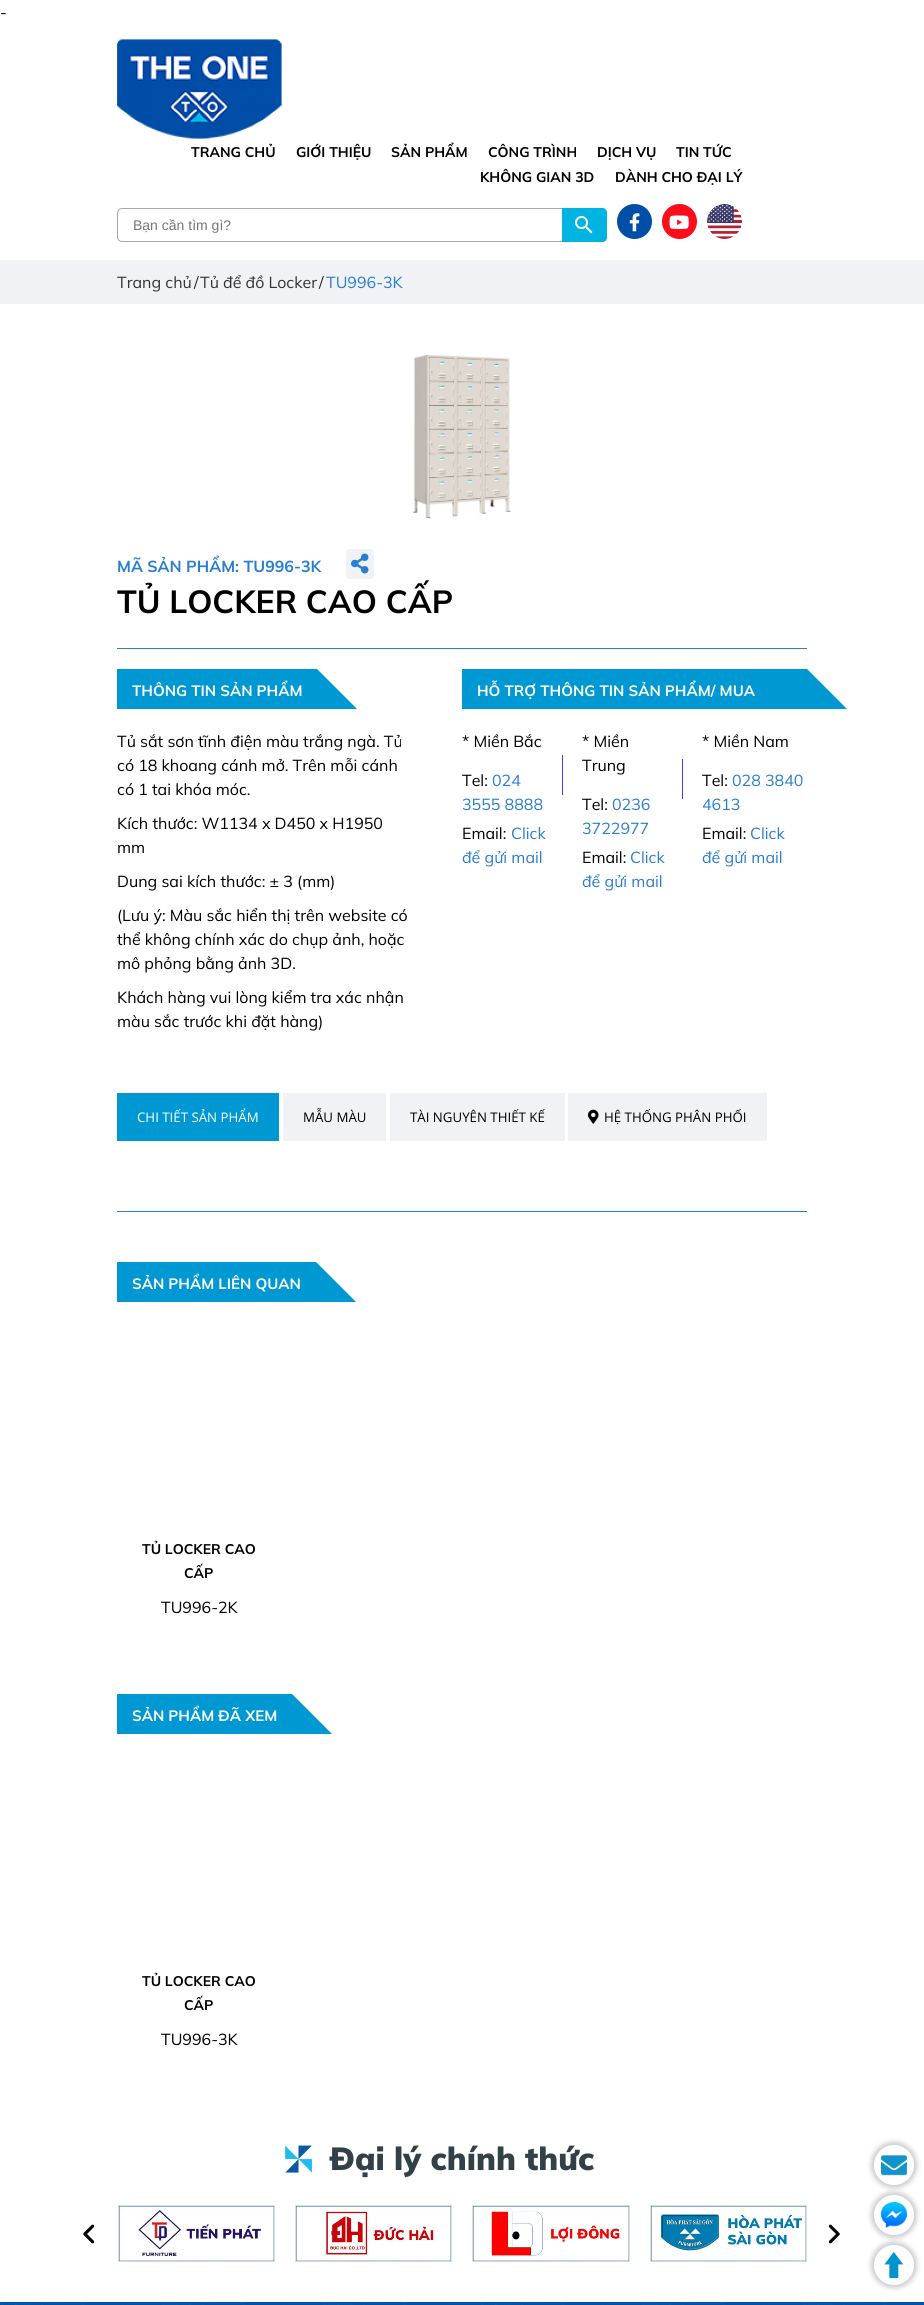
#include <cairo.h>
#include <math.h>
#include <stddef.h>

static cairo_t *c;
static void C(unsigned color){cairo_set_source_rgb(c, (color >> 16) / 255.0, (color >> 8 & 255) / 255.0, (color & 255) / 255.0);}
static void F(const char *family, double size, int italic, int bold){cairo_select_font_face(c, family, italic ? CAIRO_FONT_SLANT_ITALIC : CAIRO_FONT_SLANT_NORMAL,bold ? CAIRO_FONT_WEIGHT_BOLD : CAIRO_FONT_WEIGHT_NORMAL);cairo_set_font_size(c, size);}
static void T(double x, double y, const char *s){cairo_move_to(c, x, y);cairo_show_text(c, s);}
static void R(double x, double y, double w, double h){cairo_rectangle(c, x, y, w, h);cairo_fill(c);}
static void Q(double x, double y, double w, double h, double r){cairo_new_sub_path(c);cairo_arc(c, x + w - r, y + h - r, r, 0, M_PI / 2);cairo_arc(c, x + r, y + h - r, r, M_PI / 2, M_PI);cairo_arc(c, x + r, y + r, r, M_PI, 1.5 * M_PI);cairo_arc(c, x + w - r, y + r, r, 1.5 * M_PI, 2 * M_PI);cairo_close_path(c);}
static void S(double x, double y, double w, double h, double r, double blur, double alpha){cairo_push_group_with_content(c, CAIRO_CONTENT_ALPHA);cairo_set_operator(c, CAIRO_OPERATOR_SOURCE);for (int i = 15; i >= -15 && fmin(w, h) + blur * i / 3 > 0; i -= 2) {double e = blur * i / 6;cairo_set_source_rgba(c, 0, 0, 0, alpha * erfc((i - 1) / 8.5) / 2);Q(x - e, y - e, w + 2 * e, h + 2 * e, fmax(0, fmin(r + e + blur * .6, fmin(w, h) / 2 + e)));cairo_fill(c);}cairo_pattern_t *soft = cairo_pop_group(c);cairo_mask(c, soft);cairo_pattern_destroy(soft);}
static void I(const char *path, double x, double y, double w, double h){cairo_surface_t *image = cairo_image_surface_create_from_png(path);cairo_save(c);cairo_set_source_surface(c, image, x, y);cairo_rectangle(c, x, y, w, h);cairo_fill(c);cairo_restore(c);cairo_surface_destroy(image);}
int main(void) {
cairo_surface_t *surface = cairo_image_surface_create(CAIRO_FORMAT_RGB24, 924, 2305);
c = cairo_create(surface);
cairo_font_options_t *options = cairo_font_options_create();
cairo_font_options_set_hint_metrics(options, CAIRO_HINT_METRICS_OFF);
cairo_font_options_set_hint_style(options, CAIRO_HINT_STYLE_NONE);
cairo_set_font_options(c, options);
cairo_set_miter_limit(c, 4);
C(0xffffff);
cairo_paint(c);
F("Mulish",16,0,0);
C(0x000000);
T(0,18,"-");
I("1.png",117,39,165,100);
F("Mulish",14,0,1);
T(191,157,"TRANG CHỦ");
T(296,157,"GIỚI THIỆU");
T(391,157,"SẢN PHẨM");
T(488,157,"CÔNG TRÌNH");
T(597,157,"DỊCH VỤ");
T(676,157,"TIN TỨC");
T(480,182,"KHÔNG GIAN 3D");
T(615,182,"DÀNH CHO ĐẠI LÝ");
Q(117.5,208.5,489,33,4.5);
C(0xaaa9a9);
cairo_set_line_width(c,1);
cairo_stroke(c);
F("Liberation Sans",14,0,0);
C(0x757575);
T(133,230,"Bạn cần tìm gì?");
C(0x00b4e1);
cairo_new_path(c);
cairo_move_to(c,562,208);
cairo_line_to(c,602,208);
cairo_curve_to(c,605,208,607,210,607,213);
cairo_line_to(c,607,237);
cairo_curve_to(c,607,240,605,242,602,242);
cairo_line_to(c,562,242);
cairo_close_path(c);
cairo_fill(c);
I("2.png",575,216,18,18);
C(0x014ea8);
cairo_arc(c,634.5,221.5,17.5,0,2 * M_PI);
cairo_fill(c);
I("3.png",629,213,11,19);
C(0xfc0d1b);
cairo_arc(c,679.5,221.5,17.5,0,2 * M_PI);
cairo_fill(c);
I("4.png",669,215,20,14);
I("5.png",707,204,35,35);
C(0xf0f2f5);
R(0,260,924,44);
F("Mulish",16,0,0);
C(0x333333);
T(117,288,"Trang chủ");
C(0x222222);
T(194,288,"/");
C(0x333333);
T(200,288,"Tủ để đồ Locker");
C(0x222222);
T(319,288,"/");
C(0x297ecf);
T(326,288,"TU996-3K");
R(117,648,690,1);
I("6.png",412,354,100,165);
F("Mulish",16,0,1);
T(117,572,"MÃ SẢN PHẨM: TU996-3K");
C(0xf0f2f5);
Q(346,549,28,30,4);
cairo_fill(c);
I("7.png",351,553,18,21);
F("Mulish",32,0,1);
C(0x000000);
T(117,613,"TỦ LOCKER CAO CẤP");
C(0x0098d2);
R(117,669,200,40);
F("Mulish",15,0,1);
C(0xffffff);
T(132,696,"THÔNG TIN SẢN PHẨM");
C(0x0098d2);
cairo_new_path(c);
cairo_move_to(c,317,709);
cairo_line_to(c,317,669);
cairo_line_to(c,357,709);
cairo_close_path(c);
cairo_fill(c);
F("Mulish",16,0,0);
C(0x000000);
T(117,747,"Tủ sắt sơn tĩnh điện màu trắng ngà. Tủ");
T(117,771,"có 18 khoang cánh mở. Trên mỗi cánh");
T(117,795,"có 1 tai khóa móc.");
T(117,829,"Kích thước: W1134 x D450 x H1950");
T(117,853,"mm");
T(117,887,"Dung sai kích thước: ± 3 (mm)");
T(117,921,"(Lưu ý: Màu sắc hiển thị trên website có");
T(117,945,"thể không chính xác do chụp ảnh, hoặc");
T(117,969,"mô phỏng bằng ảnh 3D.");
T(117,1003,"Khách hàng vui lòng kiểm tra xác nhận");
T(117,1027,"màu sắc trước khi đặt hàng)");
C(0x0098d2);
R(462,669,345,40);
F("Mulish",15,0,1);
C(0xffffff);
T(477,696,"HỖ TRỢ THÔNG TIN SẢN PHẨM/ MUA");
C(0x0098d2);
cairo_new_path(c);
cairo_move_to(c,807,709);
cairo_line_to(c,807,669);
cairo_line_to(c,847,709);
cairo_close_path(c);
cairo_fill(c);
F("Mulish",16,0,0);
C(0x000000);
T(462,747,"* Miền Bắc");
T(462,786,"Tel:");
C(0x297ecf);
T(492,786,"024");
T(462,810,"3555 8888");
C(0x000000);
T(462,839,"Email:");
C(0x297ecf);
T(511,839,"Click");
T(462,863,"để gửi mail");
C(0x5533ff);
R(562,755,1,40);
C(0x000000);
T(582,747,"* Miền");
T(582,771,"Trung");
C(0x5533ff);
R(682,759,1,40);
C(0x000000);
T(582,810,"Tel:");
C(0x297ecf);
T(612,810,"0236");
T(582,834,"3722977");
C(0x000000);
T(582,863,"Email:");
C(0x297ecf);
T(630,863,"Click");
T(582,887,"để gửi mail");
C(0x000000);
T(702,747,"* Miền Nam");
T(702,786,"Tel:");
C(0x297ecf);
T(732,786,"028 3840");
T(702,810,"4613");
C(0x000000);
T(702,839,"Email:");
C(0x297ecf);
T(750,839,"Click");
T(702,863,"để gửi mail");
R(117,1211,690,1);
C(0x0098d2);
R(117,1093,162,48);
F("Open Sans",13.25,0,0);
C(0xffffff);
T(137,1122,"CHI TIẾT SẢN PHẨM");
C(0xf0f2f5);
R(283,1093,103,48);
C(0x000000);
T(303,1122,"MẪU MÀU");
C(0xf0f2f5);
R(390,1093,175,48);
C(0x000000);
T(410,1122,"TÀI NGUYÊN THIẾT KẾ");
C(0xf0f2f5);
R(568,1093,199,48);
I("8.png",588,1109,11,15);
C(0x000000);
T(604,1122,"HỆ THỐNG PHÂN PHỐI");
C(0x0098d2);
R(117,1262,199,40);
F("Mulish",15,0,1);
C(0xffffff);
T(132,1289,"SẢN PHẨM LIÊN QUAN");
C(0x0098d2);
cairo_new_path(c);
cairo_move_to(c,316,1302);
cairo_line_to(c,316,1262);
cairo_line_to(c,356,1302);
cairo_close_path(c);
cairo_fill(c);
F("Mulish",14,0,1);
C(0x000000);
T(142,1554,"TỦ LOCKER CAO");
T(184,1578,"CẤP");
F("Mulish",16,0,0);
T(161,1613,"TU996-2K");
C(0x0098d2);
R(117,1694,175,40);
F("Mulish",15,0,1);
C(0xffffff);
T(132,1721,"SẢN PHẨM ĐÃ XEM");
C(0x0098d2);
cairo_new_path(c);
cairo_move_to(c,292,1734);
cairo_line_to(c,292,1694);
cairo_line_to(c,332,1734);
cairo_close_path(c);
cairo_fill(c);
F("Mulish",14,0,1);
C(0x000000);
T(142,1986,"TỦ LOCKER CAO");
T(184,2010,"CẤP");
F("Mulish",16,0,0);
T(161,2045,"TU996-3K");
I("9.png",285,2145,27,28);
F("Mulish Black",32,0,0);
C(0x324148);
T(330,2170,"Đại lý chính thức");
C(0xdddddd);
R(806,2205,1,57);
cairo_rectangle(c,118.5,2205.5,156,56);
cairo_stroke(c);
I("10.png",119,2206,155,56);
cairo_rectangle(c,295.5,2205.5,156,56);
cairo_stroke(c);
I("11.png",296,2206,155,56);
cairo_rectangle(c,472.5,2205.5,157,56);
cairo_stroke(c);
I("12.png",473,2206,156,56);
cairo_save(c);
cairo_rectangle(c,117,2205,689,57);
cairo_clip(c);
cairo_rectangle(c,650.5,2205.5,156,56);
cairo_stroke(c);
cairo_restore(c);
I("13.png",651,2206,155,56);
I("14.png",83,2224,12,20);
I("15.png",828,2224,12,20);
C(0x000000);
S(871,2142,46,46,23,2.5,.2);
C(0xffffff);
cairo_arc(c,894,2165,20,0,2 * M_PI);
cairo_fill(c);
I("16.png",881,2155,26,21);
C(0x000000);
S(871,2192,46,46,23,2.5,.2);
C(0xffffff);
cairo_arc(c,894,2215,20,0,2 * M_PI);
cairo_fill(c);
I("17.png",881,2202,26,26);
C(0x000000);
S(871,2242,46,46,23,2.5,.2);
C(0xffffff);
cairo_arc(c,894,2265,20,0,2 * M_PI);
cairo_fill(c);
I("18.png",884,2252,20,26);
I("19.png",0,2302,924,3);
cairo_surface_write_to_png(surface, "o.png");
cairo_font_options_destroy(options);
cairo_destroy(c);
cairo_surface_destroy(surface);
return 0;
}
